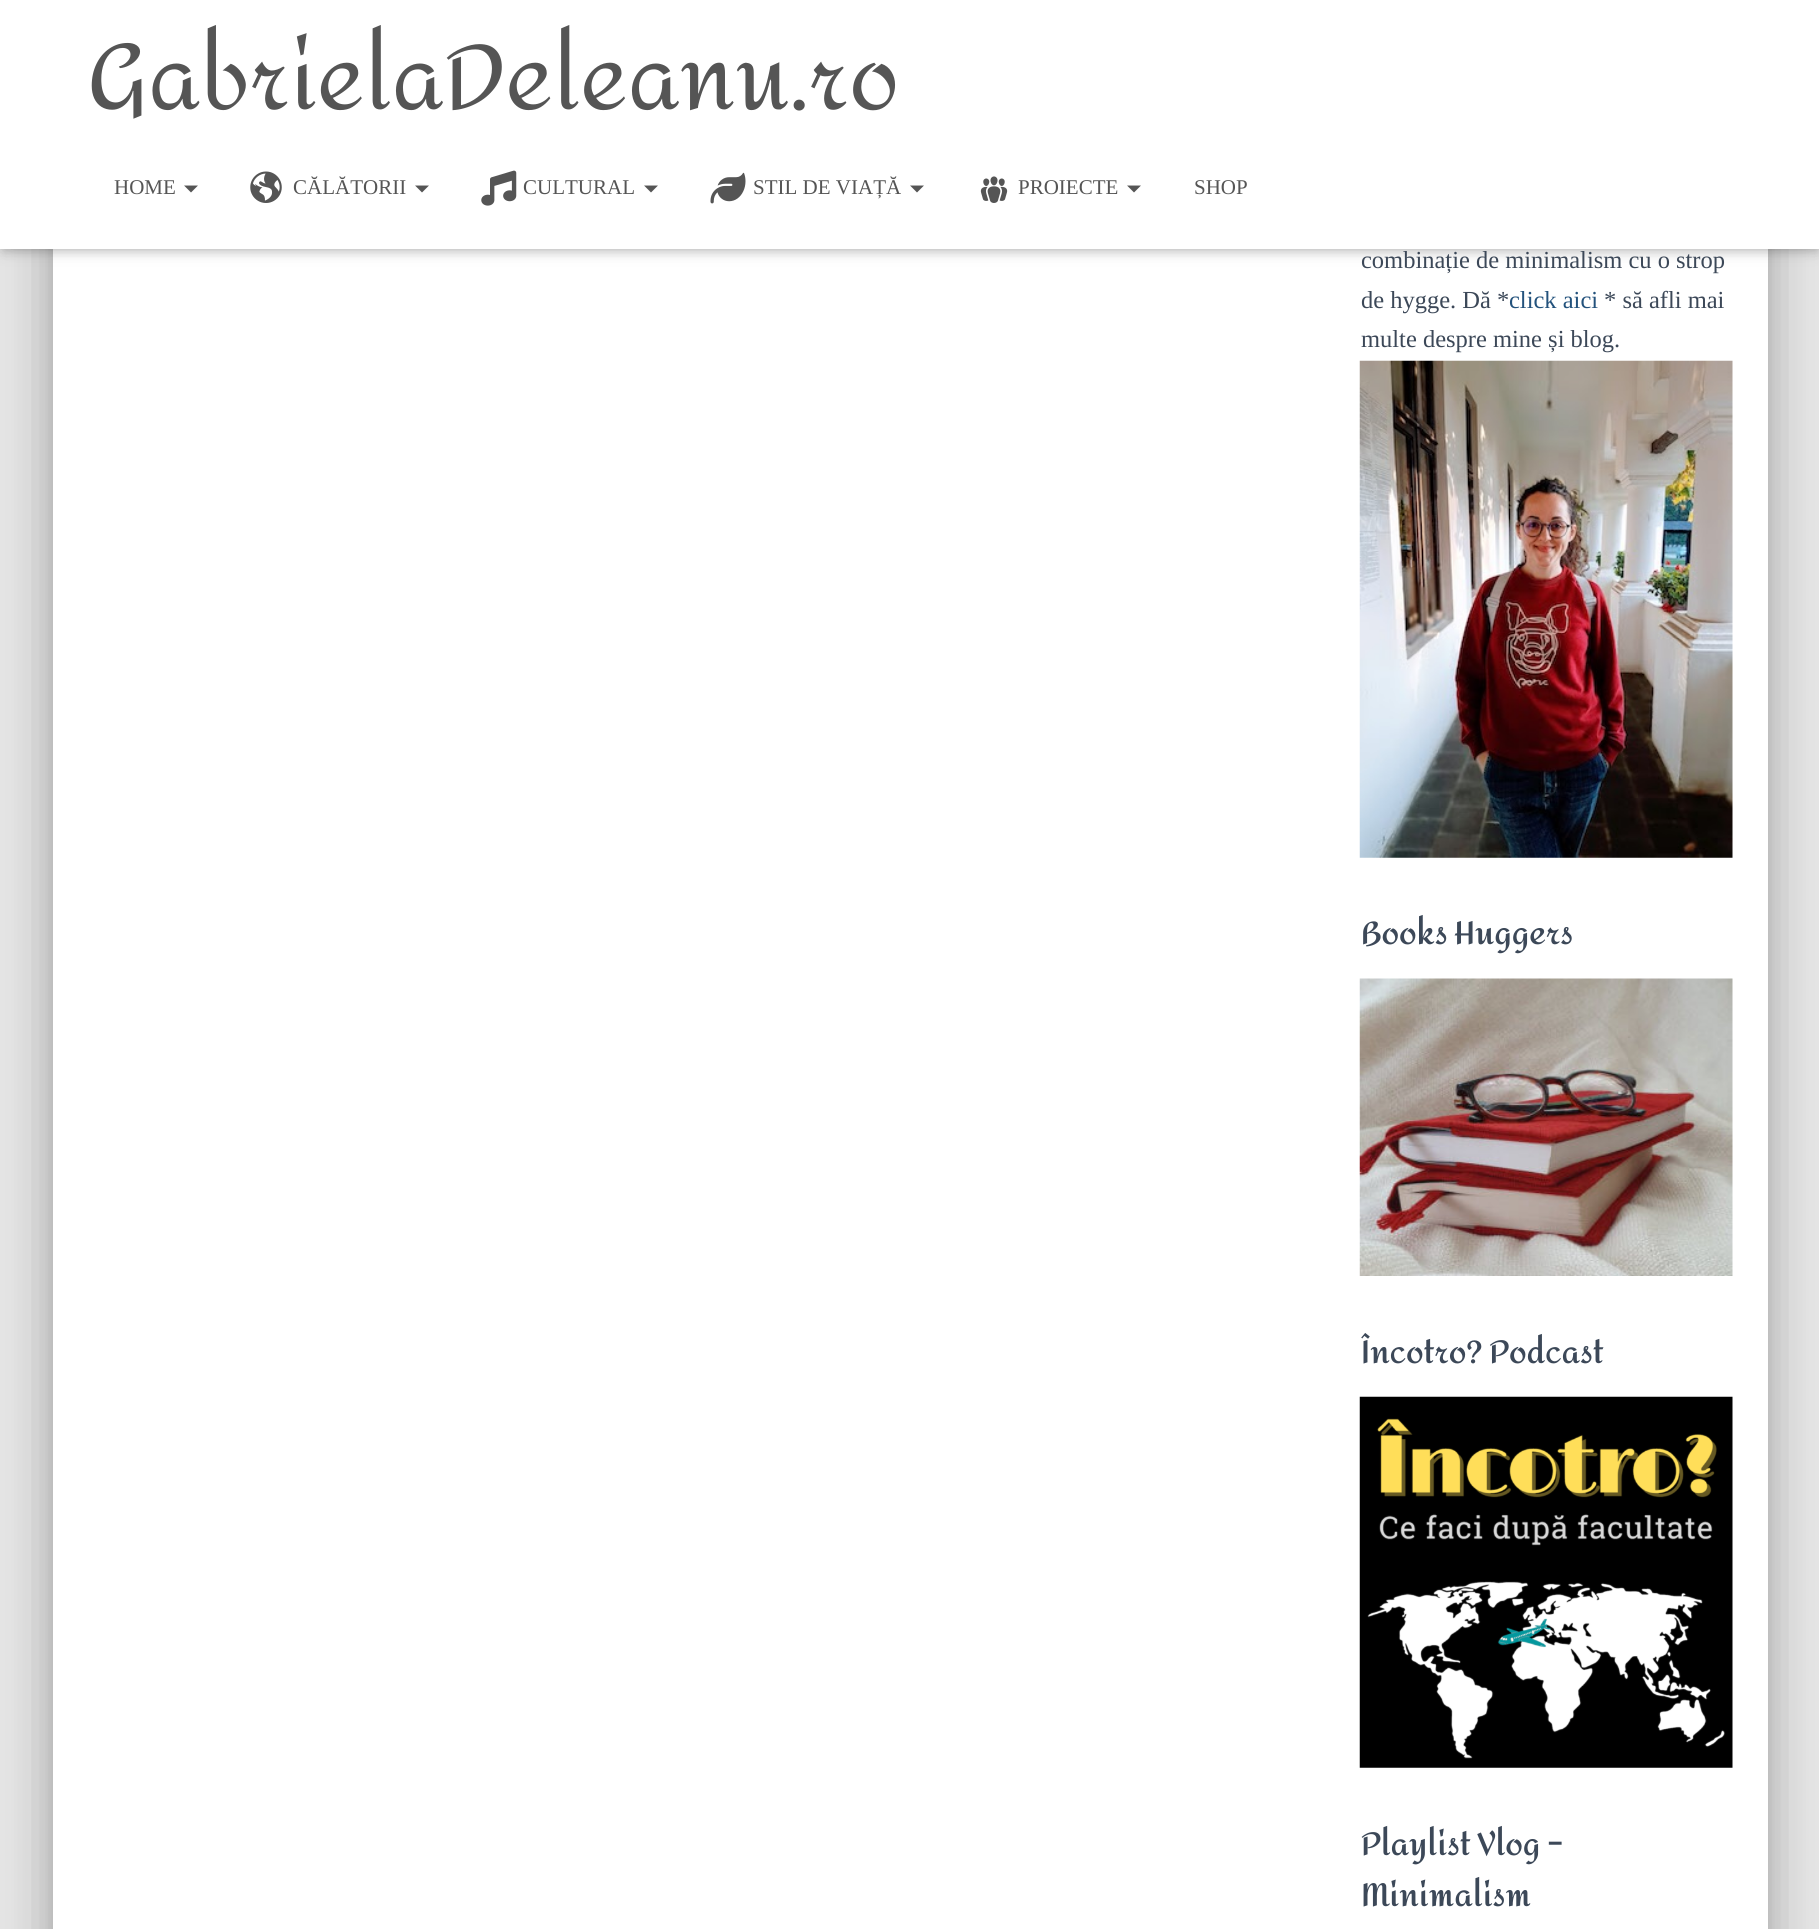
#include <cairo.h>
#include <math.h>
#include <stddef.h>

static cairo_t *c;
static void C(unsigned color){cairo_set_source_rgb(c, (color >> 16) / 255.0, (color >> 8 & 255) / 255.0, (color & 255) / 255.0);}
static void F(const char *family, double size, int italic, int bold){cairo_select_font_face(c, family, italic ? CAIRO_FONT_SLANT_ITALIC : CAIRO_FONT_SLANT_NORMAL,bold ? CAIRO_FONT_WEIGHT_BOLD : CAIRO_FONT_WEIGHT_NORMAL);cairo_set_font_size(c, size);}
static void T(double x, double y, const char *s){cairo_move_to(c, x, y);cairo_show_text(c, s);}
static void R(double x, double y, double w, double h){cairo_rectangle(c, x, y, w, h);cairo_fill(c);}
static void Q(double x, double y, double w, double h, double r){cairo_new_sub_path(c);cairo_arc(c, x + w - r, y + h - r, r, 0, M_PI / 2);cairo_arc(c, x + r, y + h - r, r, M_PI / 2, M_PI);cairo_arc(c, x + r, y + r, r, M_PI, 1.5 * M_PI);cairo_arc(c, x + w - r, y + r, r, 1.5 * M_PI, 2 * M_PI);cairo_close_path(c);}
static void S(double x, double y, double w, double h, double r, double blur, double alpha){cairo_push_group_with_content(c, CAIRO_CONTENT_ALPHA);cairo_set_operator(c, CAIRO_OPERATOR_SOURCE);for (int i = 15; i >= -15 && fmin(w, h) + blur * i / 3 > 0; i -= 2) {double e = blur * i / 6;cairo_set_source_rgba(c, 0, 0, 0, alpha * erfc((i - 1) / 8.5) / 2);Q(x - e, y - e, w + 2 * e, h + 2 * e, fmax(0, fmin(r + e + blur * .6, fmin(w, h) / 2 + e)));cairo_fill(c);}cairo_pattern_t *soft = cairo_pop_group(c);cairo_mask(c, soft);cairo_pattern_destroy(soft);}
static void I(const char *path, double x, double y, double w, double h){cairo_surface_t *image = cairo_image_surface_create_from_png(path);cairo_save(c);cairo_set_source_surface(c, image, x, y);cairo_rectangle(c, x, y, w, h);cairo_fill(c);cairo_restore(c);cairo_surface_destroy(image);}
int main(void) {
cairo_surface_t *surface = cairo_image_surface_create(CAIRO_FORMAT_RGB24, 1819, 1929);
c = cairo_create(surface);
cairo_font_options_t *options = cairo_font_options_create();
cairo_font_options_set_hint_metrics(options, CAIRO_HINT_METRICS_OFF);
cairo_font_options_set_hint_style(options, CAIRO_HINT_STYLE_NONE);
cairo_set_font_options(c, options);
cairo_set_miter_limit(c, 4);
C(0xe5e5e5);
cairo_paint(c);
C(0x000000);
S(61,-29,1698,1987,2,9,.2);
S(44,-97,1732,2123,19,26,.12);
S(49,-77,1722,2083,14,21,.14);
C(0xffffff);
R(53,249,1715,1680);
C(0x000000);
S(4,11,1813,241,0,4.5,.1);
S(0,2,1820,248,0,9,.12);
S(11,12,1799,228,0,9,.42);
C(0xffffff);
R(0,0,1819,249);
F("Amita",91,0,0);
C(0x555555);
T(88,109,"GabrielaDeleanu.ro");
F("Liberation Serif",21,0,0);
T(114,194,"HOME");
cairo_new_path(c);
cairo_move_to(c,184,185.5);
cairo_line_to(c,198,185.5);
cairo_line_to(c,191,192.5);
cairo_close_path(c);
cairo_fill(c);
I("1.png",250,171,32,32);
T(293,194,"CĂLĂTORII");
cairo_new_path(c);
cairo_move_to(c,415,185.5);
cairo_line_to(c,429,185.5);
cairo_line_to(c,422,192.5);
cairo_close_path(c);
cairo_fill(c);
I("2.png",481,170,36,36);
T(523,194,"CULTURAL");
cairo_new_path(c);
cairo_move_to(c,644,185.5);
cairo_line_to(c,658,185.5);
cairo_line_to(c,651,192.5);
cairo_close_path(c);
cairo_fill(c);
I("3.png",710,172,36,32);
T(753,194,"STIL DE VIAȚĂ");
cairo_new_path(c);
cairo_move_to(c,910,185.5);
cairo_line_to(c,924,185.5);
cairo_line_to(c,917,192.5);
cairo_close_path(c);
cairo_fill(c);
I("4.png",980,176,28,27);
T(1018,194,"PROIECTE");
cairo_new_path(c);
cairo_move_to(c,1127,185.5);
cairo_line_to(c,1141,185.5);
cairo_line_to(c,1134,192.5);
cairo_close_path(c);
cairo_fill(c);
T(1194,194,"SHOP");
F("Liberation Serif",24.5,0,0);
C(0x3c4858);
T(1361,268,"combinație de minimalism cu o strop");
T(1361,308,"de hygge. Dă *");
C(0x23527c);
T(1509,308,"click aici");
C(0x3c4858);
T(1604,308,"* să afli mai");
T(1361,347,"multe despre mine și blog.");
I("5.png",1359,360,374,498);
F("Amita",31.5,0,1);
T(1361,944,"Books Huggers");
I("6.png",1359,978,374,298);
T(1361,1363,"Încotro? Podcast");
I("7.png",1359,1396,374,372);
T(1361,1855,"Playlist Vlog –");
T(1361,1906,"Minimalism");
cairo_surface_write_to_png(surface, "o.png");
cairo_font_options_destroy(options);
cairo_destroy(c);
cairo_surface_destroy(surface);
return 0;
}
